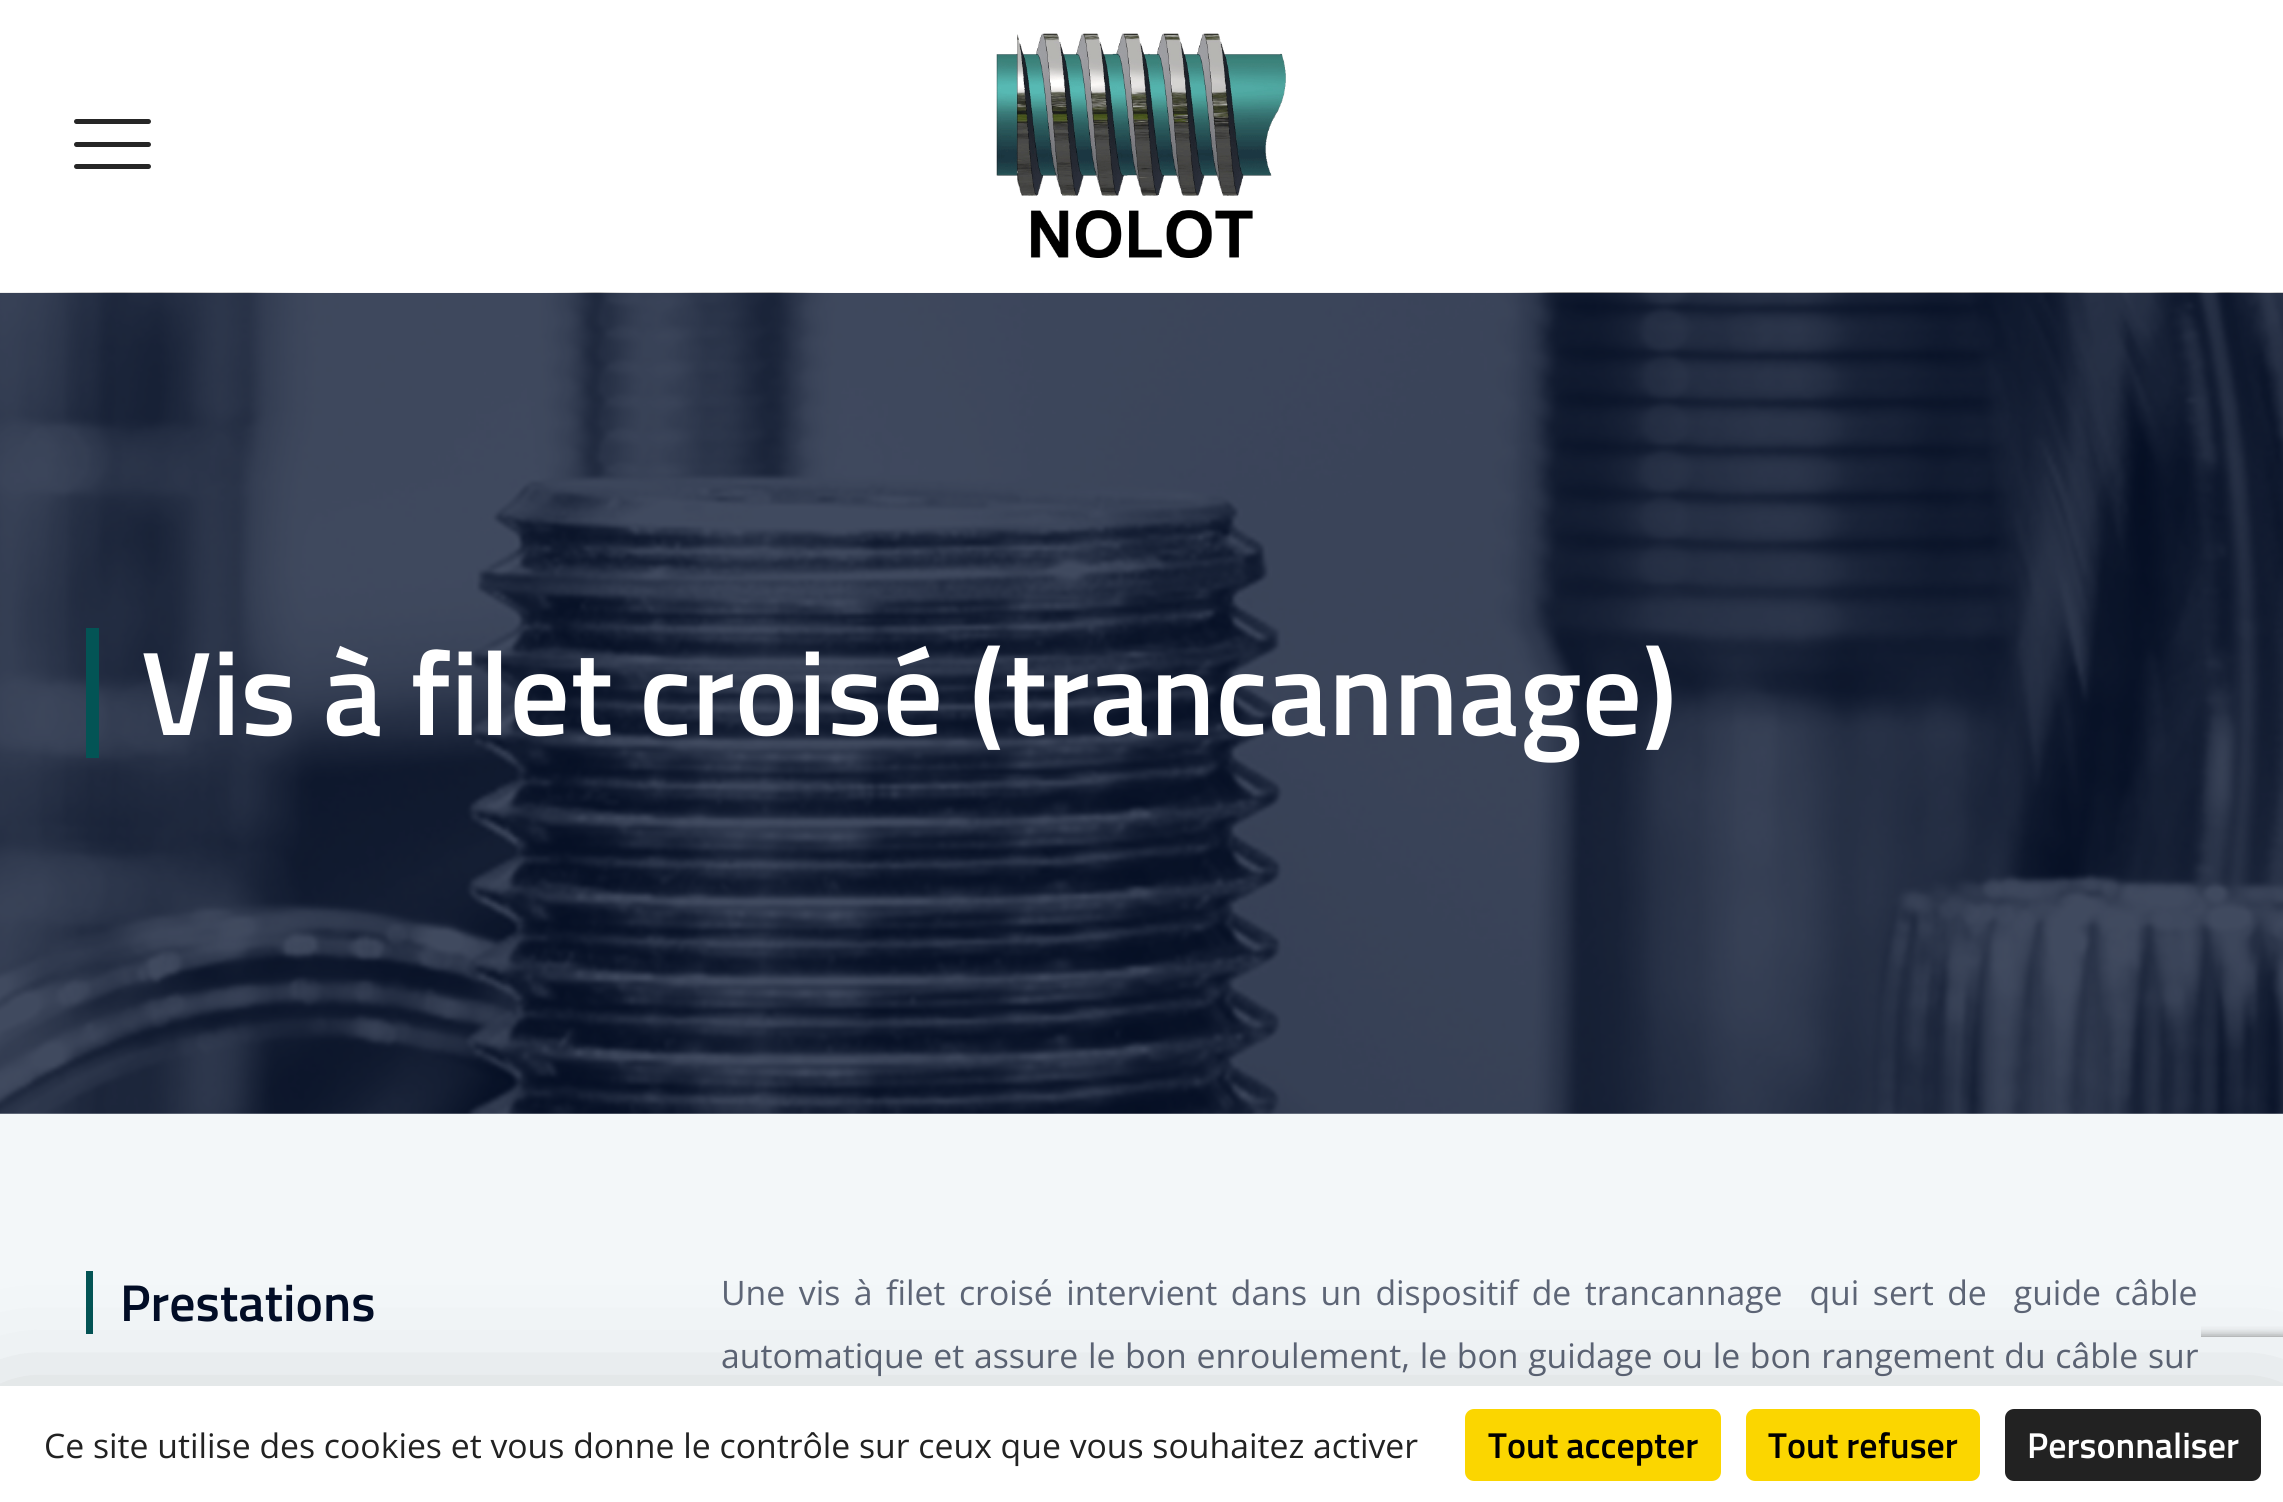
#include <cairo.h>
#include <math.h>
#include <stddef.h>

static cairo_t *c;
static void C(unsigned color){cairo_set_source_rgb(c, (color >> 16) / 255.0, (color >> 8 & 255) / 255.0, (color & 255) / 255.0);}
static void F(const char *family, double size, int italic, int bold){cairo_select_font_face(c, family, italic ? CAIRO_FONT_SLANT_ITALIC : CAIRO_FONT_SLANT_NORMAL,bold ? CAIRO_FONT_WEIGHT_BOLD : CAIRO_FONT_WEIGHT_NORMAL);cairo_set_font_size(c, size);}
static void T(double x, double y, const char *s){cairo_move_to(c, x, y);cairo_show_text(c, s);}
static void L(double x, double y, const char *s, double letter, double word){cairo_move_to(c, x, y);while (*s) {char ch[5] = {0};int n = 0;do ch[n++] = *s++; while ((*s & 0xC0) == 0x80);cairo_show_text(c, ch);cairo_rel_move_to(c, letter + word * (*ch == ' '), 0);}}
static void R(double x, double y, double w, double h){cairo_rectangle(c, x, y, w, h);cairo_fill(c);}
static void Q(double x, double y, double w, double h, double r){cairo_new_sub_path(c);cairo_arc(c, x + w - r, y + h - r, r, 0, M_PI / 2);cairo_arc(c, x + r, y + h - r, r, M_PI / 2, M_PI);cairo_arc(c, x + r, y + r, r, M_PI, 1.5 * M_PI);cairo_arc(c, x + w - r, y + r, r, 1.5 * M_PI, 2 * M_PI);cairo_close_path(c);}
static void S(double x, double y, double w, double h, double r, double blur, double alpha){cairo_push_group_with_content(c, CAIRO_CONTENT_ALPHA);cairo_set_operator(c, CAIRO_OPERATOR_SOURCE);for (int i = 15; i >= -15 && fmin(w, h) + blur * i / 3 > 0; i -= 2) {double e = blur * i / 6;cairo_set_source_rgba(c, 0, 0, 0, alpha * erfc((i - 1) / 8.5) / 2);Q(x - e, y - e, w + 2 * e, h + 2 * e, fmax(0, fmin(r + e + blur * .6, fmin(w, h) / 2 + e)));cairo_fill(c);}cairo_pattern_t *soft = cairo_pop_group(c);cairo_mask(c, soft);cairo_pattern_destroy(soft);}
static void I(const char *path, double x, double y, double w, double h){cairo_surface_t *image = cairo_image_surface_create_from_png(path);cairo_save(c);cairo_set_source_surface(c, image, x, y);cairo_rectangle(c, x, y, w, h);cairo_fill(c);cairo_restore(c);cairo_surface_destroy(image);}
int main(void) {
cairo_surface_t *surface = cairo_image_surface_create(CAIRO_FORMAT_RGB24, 2283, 1502);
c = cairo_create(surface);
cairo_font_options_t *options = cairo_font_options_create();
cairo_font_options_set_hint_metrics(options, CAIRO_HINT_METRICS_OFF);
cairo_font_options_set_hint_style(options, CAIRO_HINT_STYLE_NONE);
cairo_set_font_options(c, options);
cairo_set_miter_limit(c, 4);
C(0xf3f7f9);
cairo_paint(c);
C(0xffffff);
R(0,0,2283,293);
C(0x262626);
Q(74,142,77,5,2.5);
cairo_fill(c);
Q(74,119,77,5,2.5);
cairo_fill(c);
Q(74,164,77,5,2.5);
cairo_fill(c);
I("1.png",996,33,290,225);
I("2.png",0,292,2283,822);
C(0x035455);
R(86,628,13,130);
F("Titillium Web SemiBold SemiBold",119.25,0,0);
C(0xffffff);
T(141,735,"Vis à filet croisé (trancannage)");
C(0x035455);
R(86,1271,7,63);
F("Titillium Web SemiBold SemiBold",51.75,0,0);
C(0x020d26);
T(120,1321,"Prestations");
cairo_save(c);
cairo_rectangle(c,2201,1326,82,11);
cairo_clip(c);
C(0x808080);
S(2126,1337,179,135,5,5.5,1);
cairo_restore(c);
C(0xf3f7f9);
R(2115,1326,86,60);
F("Open Sans",33.75,0,0);
C(0x5d6576);
L(721,1305,"Une vis à filet croisé intervient dans un dispositif de trancannage  qui sert de  guide câble",0,4.75);
L(721,1368,"automatique et assure le bon enroulement, le bon guidage ou le bon rangement du câble sur",0,.9);
C(0x000000);
S(0,1431,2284,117,0,67.5,.25);
C(0xffffff);
R(0,1386,2283,116);
C(0x222222);
T(44,1458,"Ce site utilise des cookies et vous donne le contrôle sur ceux que vous souhaitez activer");
C(0xfbd600);
Q(1465,1409,256,72,9);
cairo_fill(c);
F("Titillium Web SemiBold SemiBold",36,0,0);
C(0x000000);
T(1488,1458,"Tout accepter");
C(0xfbd600);
Q(1746,1409,234,72,9);
cairo_fill(c);
C(0x000000);
T(1768,1458,"Tout refuser");
C(0x222222);
Q(2005,1409,256,72,9);
cairo_fill(c);
C(0xffffff);
T(2027,1458,"Personnaliser");
cairo_surface_write_to_png(surface, "o.png");
cairo_font_options_destroy(options);
cairo_destroy(c);
cairo_surface_destroy(surface);
return 0;
}
